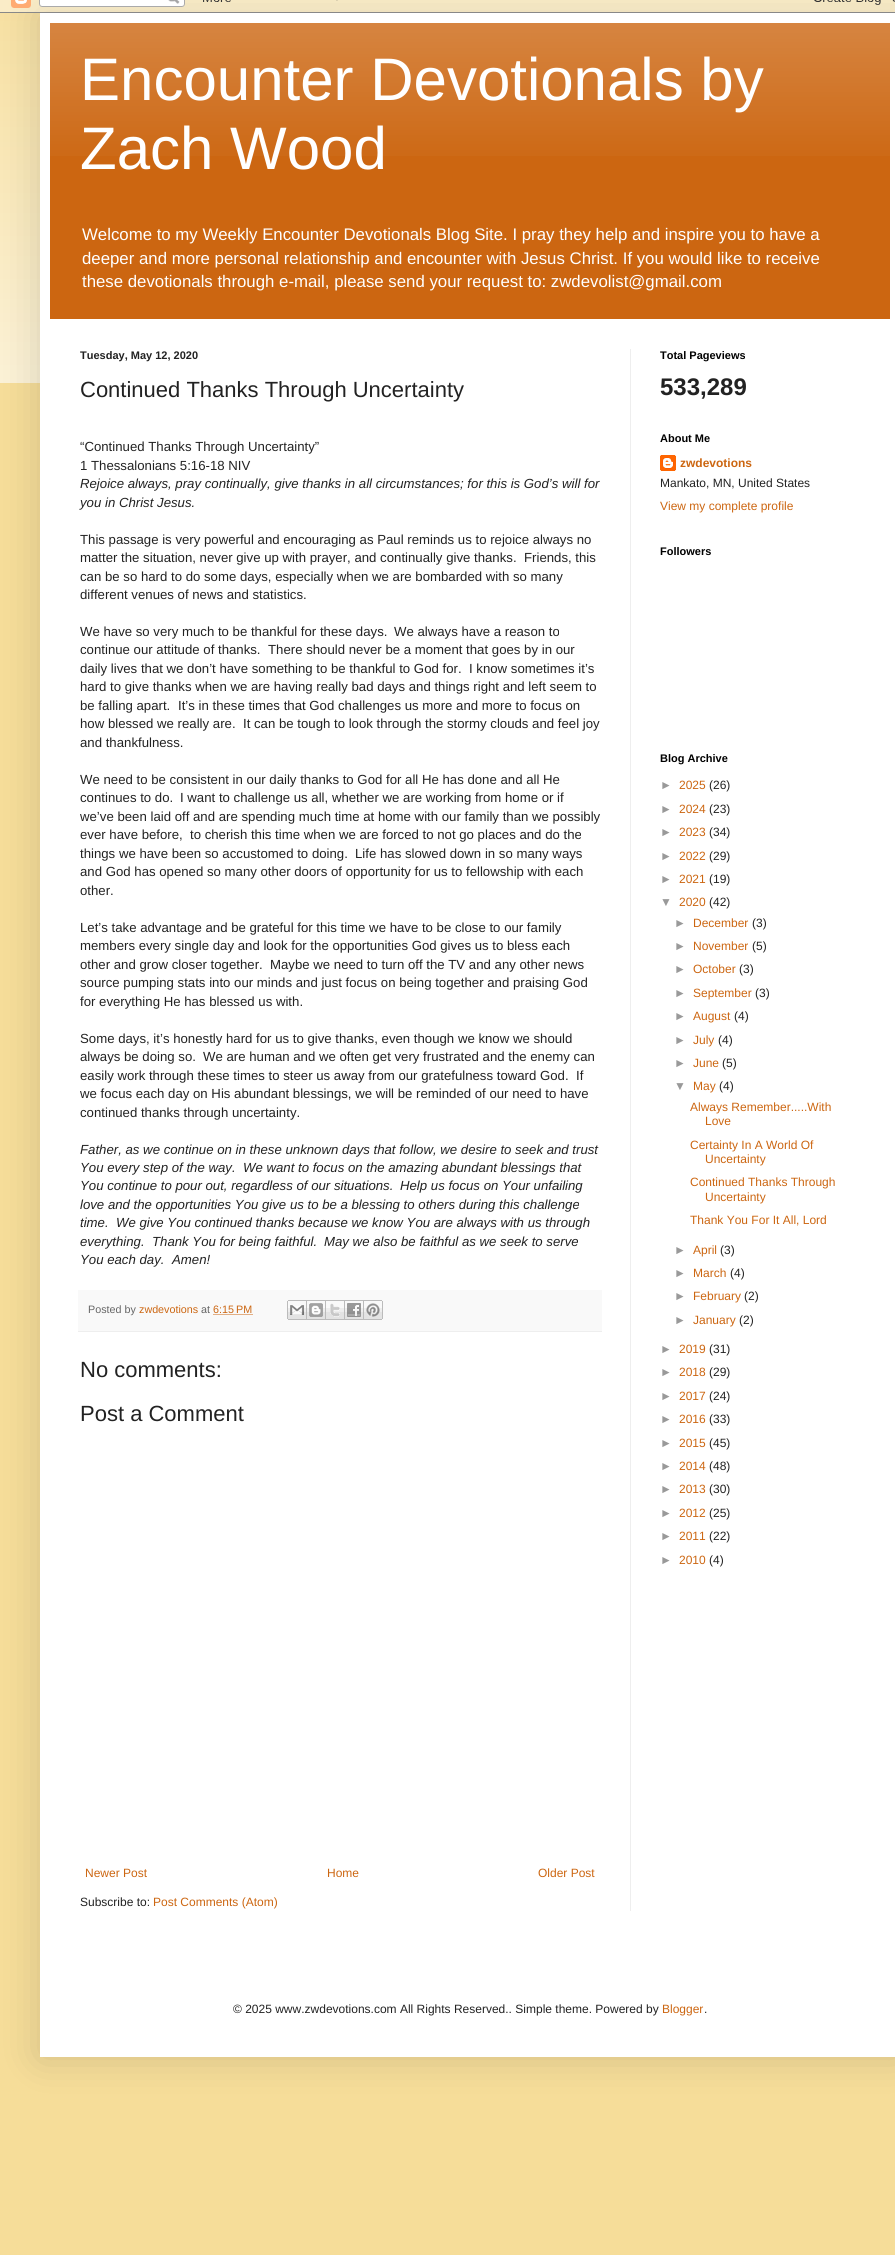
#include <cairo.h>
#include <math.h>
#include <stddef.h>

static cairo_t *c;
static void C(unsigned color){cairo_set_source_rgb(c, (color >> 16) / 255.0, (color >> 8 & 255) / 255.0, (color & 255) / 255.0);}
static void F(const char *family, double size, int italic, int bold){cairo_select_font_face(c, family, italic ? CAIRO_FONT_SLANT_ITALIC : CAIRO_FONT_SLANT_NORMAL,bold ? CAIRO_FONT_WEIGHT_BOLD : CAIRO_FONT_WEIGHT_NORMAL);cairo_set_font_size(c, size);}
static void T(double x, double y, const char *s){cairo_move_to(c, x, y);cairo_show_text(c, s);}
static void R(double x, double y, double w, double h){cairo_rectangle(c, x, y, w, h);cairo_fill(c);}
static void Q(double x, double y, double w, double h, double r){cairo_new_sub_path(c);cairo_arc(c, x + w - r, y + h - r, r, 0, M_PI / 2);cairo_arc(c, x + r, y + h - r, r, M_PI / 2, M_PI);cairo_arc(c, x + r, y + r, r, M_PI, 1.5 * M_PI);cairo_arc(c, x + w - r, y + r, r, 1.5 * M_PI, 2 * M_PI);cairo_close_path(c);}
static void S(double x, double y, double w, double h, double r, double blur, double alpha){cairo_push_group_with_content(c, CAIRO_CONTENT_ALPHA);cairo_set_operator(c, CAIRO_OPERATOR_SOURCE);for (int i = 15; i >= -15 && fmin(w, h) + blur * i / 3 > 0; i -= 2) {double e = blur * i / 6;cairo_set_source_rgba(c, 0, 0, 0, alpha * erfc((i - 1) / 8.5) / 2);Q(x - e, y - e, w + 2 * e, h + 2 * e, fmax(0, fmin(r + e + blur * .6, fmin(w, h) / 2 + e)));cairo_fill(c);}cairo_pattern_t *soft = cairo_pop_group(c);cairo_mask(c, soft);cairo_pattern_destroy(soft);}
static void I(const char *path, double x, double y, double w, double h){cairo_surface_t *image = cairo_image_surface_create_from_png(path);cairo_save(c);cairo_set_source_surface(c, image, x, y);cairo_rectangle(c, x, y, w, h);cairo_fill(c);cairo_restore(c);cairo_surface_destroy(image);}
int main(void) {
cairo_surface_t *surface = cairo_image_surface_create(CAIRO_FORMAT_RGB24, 895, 2255);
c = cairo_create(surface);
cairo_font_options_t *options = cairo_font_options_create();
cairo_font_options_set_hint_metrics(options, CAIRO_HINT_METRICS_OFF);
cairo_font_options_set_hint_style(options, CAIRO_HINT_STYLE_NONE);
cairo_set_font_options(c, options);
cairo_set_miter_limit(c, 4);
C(0xf6dd99);
cairo_paint(c);
I("1.png",0,0,895,383);
C(0x000000);
S(40,13,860,2044,0,20,.15);
I("2.png",0,0,895,13);
C(0xffffff);
R(40,13,855,2044);
C(0xcc6611);
R(50,23,840,296);
I("3.png",50,23,840,133);
F("Liberation Sans",60,0,0);
C(0xffffff);
T(80,100,"Encounter Devotionals by");
T(80,169,"Zach Wood");
F("Liberation Sans",16.8,0,0);
T(82,240,"Welcome to my Weekly Encounter Devotionals Blog Site. I pray they help and inspire you to have a");
T(82,264,"deeper and more personal relationship and encounter with Jesus Christ. If you would like to receive");
T(82,287,"these devotionals through e-mail, please send your request to: zwdevolist@gmail.com");
C(0xeeeeee);
R(630,349,1,1562);
F("Liberation Sans",11,0,1);
C(0x222222);
T(80,359,"Tuesday, May 12, 2020");
F("Liberation Sans",22,0,0);
T(80,397,"Continued Thanks Through Uncertainty");
F("Liberation Sans",13.2,0,0);
T(80,451,"“Continued Thanks Through Uncertainty”");
T(80,470,"1 Thessalonians 5:16-18 NIV");
F("Liberation Sans",13.2,1,0);
T(80,488,"Rejoice always, pray continually, give thanks in all circumstances; for this is God’s will for");
T(80,507,"you in Christ Jesus.");
F("Liberation Sans",13.2,0,0);
T(80,544,"This passage is very powerful and encouraging as Paul reminds us to rejoice always no");
T(80,562,"matter the situation, never give up with prayer, and continually give thanks.");
T(524,562,"Friends, this");
T(80,581,"can be so hard to do some days, especially when we are bombarded with so many");
T(80,599,"different venues of news and statistics.");
T(80,636,"We have so very much to be thankful for these days.");
T(394,636,"We always have a reason to");
T(80,654,"continue our attitude of thanks.");
T(268,654,"There should never be a moment that goes by in our");
T(80,673,"daily lives that we don’t have something to be thankful to God for.");
T(469,673,"I know sometimes it’s");
T(80,691,"hard to give thanks when we are having really bad days and things right and left seem to");
T(80,710,"be falling apart.");
T(178,710,"It’s in these times that God challenges us more and more to focus on");
T(80,728,"how blessed we really are.");
T(243,728,"It can be tough to look through the stormy clouds and feel joy");
T(80,747,"and thankfulness.");
T(80,784,"We need to be consistent in our daily thanks to God for all He has done and all He");
T(80,802,"continues to do.");
T(180,802,"I want to challenge us all, whether we are working from home or if");
T(80,821,"we’ve been laid off and are spending much time at home with our family than we possibly");
T(80,839,"ever have before,");
T(190,839,"to cherish this time when we are forced to not go places and do the");
T(80,858,"things we have been so accustomed to doing.");
T(355,858,"Life has slowed down in so many ways");
T(80,876,"and God has opened so many other doors of opportunity for us to fellowship with each");
T(80,895,"other.");
T(80,932,"Let’s take advantage and be grateful for this time we have to be close to our family");
T(80,950,"members every single day and look for the opportunities God gives us to bless each");
T(80,969,"other and grow closer together.");
T(270,969,"Maybe we need to turn off the TV and any other news");
T(80,987,"source pumping stats into our minds and just focus on being together and praising God");
T(80,1006,"for everything He has blessed us with.");
T(80,1043,"Some days, it’s honestly hard for us to give thanks, even though we know we should");
T(80,1061,"always be doing so.");
T(203,1061,"We are human and we often get very frustrated and the enemy can");
T(80,1080,"easily work through these times to steer us away from our gratefulness toward God.");
T(576,1080,"If");
T(80,1098,"we focus each day on His abundant blessings, we will be reminded of our need to have");
T(80,1117,"continued thanks through uncertainty.");
F("Liberation Sans",13.2,1,0);
T(80,1154,"Father, as we continue on in these unknown days that follow, we desire to seek and trust");
T(80,1172,"You every step of the way.");
T(243,1172,"We want to focus on the amazing abundant blessings that");
T(80,1190,"You continue to pour out, regardless of our situations.");
T(400,1190,"Help us focus on Your unfailing");
T(80,1209,"love and the opportunities You give us to be a blessing to others during this challenge");
T(80,1227,"time.");
T(116,1227,"We give You continued thanks because we know You are always with us through");
T(80,1246,"everything.");
T(152,1246,"Thank You for being faithful.");
T(324,1246,"May we also be faithful as we seek to serve");
T(80,1264,"You each day.");
T(172,1264,"Amen!");
C(0xf9f9f9);
R(78,1290,524,41);
C(0xeeeeee);
R(78,1331,524,1);
F("Liberation Sans",10.75,0,0);
C(0x666666);
T(88,1313,"Posted by");
C(0xcc6611);
T(139,1313,"zwdevotions");
C(0x666666);
T(201,1313,"at");
C(0xcc6611);
T(213,1313,"6:15 PM");
cairo_new_path(c);
cairo_move_to(c,213.5,1314.5);
cairo_line_to(c,253,1314.5);
cairo_set_line_width(c,1);
cairo_set_dash(c,(double[]){1,1},2,0);
cairo_stroke(c);
I("4.png",287,1300,20,20);
I("5.png",307,1300,19,20);
I("6.png",326,1300,19,20);
I("7.png",345,1300,19,20);
I("8.png",364,1300,19,20);
F("Liberation Sans",22,0,0);
C(0x222222);
T(80,1377,"No comments:");
T(80,1421,"Post a Comment");
F("Liberation Sans",12,0,0);
C(0xcc6611);
T(85,1877,"Newer Post");
T(327,1877,"Home");
T(538,1877,"Older Post");
C(0x222222);
T(80,1906,"Subscribe to:");
C(0xcc6611);
T(153,1906,"Post Comments (Atom)");
F("Liberation Sans",11,0,1);
C(0x000000);
T(660,359,"Total Pageviews");
F("Liberation Sans",24,0,1);
C(0x222222);
T(660,395,"533,289");
F("Liberation Sans",11,0,1);
C(0x000000);
T(660,442,"About Me");
I("9.png",660,455,16,16);
F("Liberation Sans",12,0,1);
C(0xcc6611);
T(680,467,"zwdevotions");
F("Liberation Sans",12,0,0);
C(0x222222);
T(660,487,"Mankato, MN, United States");
C(0xcc6611);
T(660,510,"View my complete profile");
F("Liberation Sans",11,0,1);
C(0x000000);
T(660,555,"Followers");
T(660,762,"Blog Archive");
F("Liberation Sans",12,0,0);
C(0x999999);
T(660,789,"►");
C(0xcc6611);
T(679,789,"2025");
C(0x222222);
T(709,789,"(26)");
C(0x999999);
T(660,813,"►");
C(0xcc6611);
T(679,813,"2024");
C(0x222222);
T(709,813,"(23)");
C(0x999999);
T(660,836,"►");
C(0xcc6611);
T(679,836,"2023");
C(0x222222);
T(709,836,"(34)");
C(0x999999);
T(660,860,"►");
C(0xcc6611);
T(679,860,"2022");
C(0x222222);
T(709,860,"(29)");
C(0x999999);
T(660,883,"►");
C(0xcc6611);
T(679,883,"2021");
C(0x222222);
T(709,883,"(19)");
C(0x999999);
T(660,906,"▼");
C(0xcc6611);
T(679,906,"2020");
C(0x222222);
T(709,906,"(42)");
C(0x999999);
T(674,927,"►");
C(0xcc6611);
T(693,927,"December");
C(0x222222);
T(752,927,"(3)");
C(0x999999);
T(674,950,"►");
C(0xcc6611);
T(693,950,"November");
C(0x222222);
T(752,950,"(5)");
C(0x999999);
T(674,973,"►");
C(0xcc6611);
T(693,973,"October");
C(0x222222);
T(739,973,"(3)");
C(0x999999);
T(674,997,"►");
C(0xcc6611);
T(693,997,"September");
C(0x222222);
T(755,997,"(3)");
C(0x999999);
T(674,1020,"►");
C(0xcc6611);
T(693,1020,"August");
C(0x222222);
T(734,1020,"(4)");
C(0x999999);
T(674,1044,"►");
C(0xcc6611);
T(693,1044,"July");
C(0x222222);
T(718,1044,"(4)");
C(0x999999);
T(674,1067,"►");
C(0xcc6611);
T(693,1067,"June");
C(0x222222);
T(722,1067,"(5)");
C(0x999999);
T(674,1090,"▼");
C(0xcc6611);
T(693,1090,"May");
C(0x222222);
T(719,1090,"(4)");
C(0xcc6611);
T(690,1111,"Always Remember.....With");
T(705,1125,"Love");
T(690,1149,"Certainty In A World Of");
T(705,1163,"Uncertainty");
T(690,1186,"Continued Thanks Through");
T(705,1201,"Uncertainty");
T(690,1224,"Thank You For It All, Lord");
C(0x999999);
T(674,1254,"►");
C(0xcc6611);
T(693,1254,"April");
C(0x222222);
T(720,1254,"(3)");
C(0x999999);
T(674,1277,"►");
C(0xcc6611);
T(693,1277,"March");
C(0x222222);
T(730,1277,"(4)");
C(0x999999);
T(674,1300,"►");
C(0xcc6611);
T(693,1300,"February");
C(0x222222);
T(744,1300,"(2)");
C(0x999999);
T(674,1324,"►");
C(0xcc6611);
T(693,1324,"January");
C(0x222222);
T(739,1324,"(2)");
C(0x999999);
T(660,1353,"►");
C(0xcc6611);
T(679,1353,"2019");
C(0x222222);
T(709,1353,"(31)");
C(0x999999);
T(660,1376,"►");
C(0xcc6611);
T(679,1376,"2018");
C(0x222222);
T(709,1376,"(29)");
C(0x999999);
T(660,1400,"►");
C(0xcc6611);
T(679,1400,"2017");
C(0x222222);
T(709,1400,"(24)");
C(0x999999);
T(660,1423,"►");
C(0xcc6611);
T(679,1423,"2016");
C(0x222222);
T(709,1423,"(33)");
C(0x999999);
T(660,1447,"►");
C(0xcc6611);
T(679,1447,"2015");
C(0x222222);
T(709,1447,"(45)");
C(0x999999);
T(660,1470,"►");
C(0xcc6611);
T(679,1470,"2014");
C(0x222222);
T(709,1470,"(48)");
C(0x999999);
T(660,1493,"►");
C(0xcc6611);
T(679,1493,"2013");
C(0x222222);
T(709,1493,"(30)");
C(0x999999);
T(660,1517,"►");
C(0xcc6611);
T(679,1517,"2012");
C(0x222222);
T(709,1517,"(25)");
C(0x999999);
T(660,1540,"►");
C(0xcc6611);
T(679,1540,"2011");
C(0x222222);
T(709,1540,"(22)");
C(0x999999);
T(660,1564,"►");
C(0xcc6611);
T(679,1564,"2010");
C(0x222222);
T(709,1564,"(4)");
T(233,2013,"© 2025 www.zwdevotions.com All Rights Reserved.. Simple theme. Powered by");
C(0xcc6611);
T(662,2013,"Blogger");
C(0x222222);
T(704,2013,".");
cairo_surface_write_to_png(surface, "o.png");
cairo_font_options_destroy(options);
cairo_destroy(c);
cairo_surface_destroy(surface);
return 0;
}
